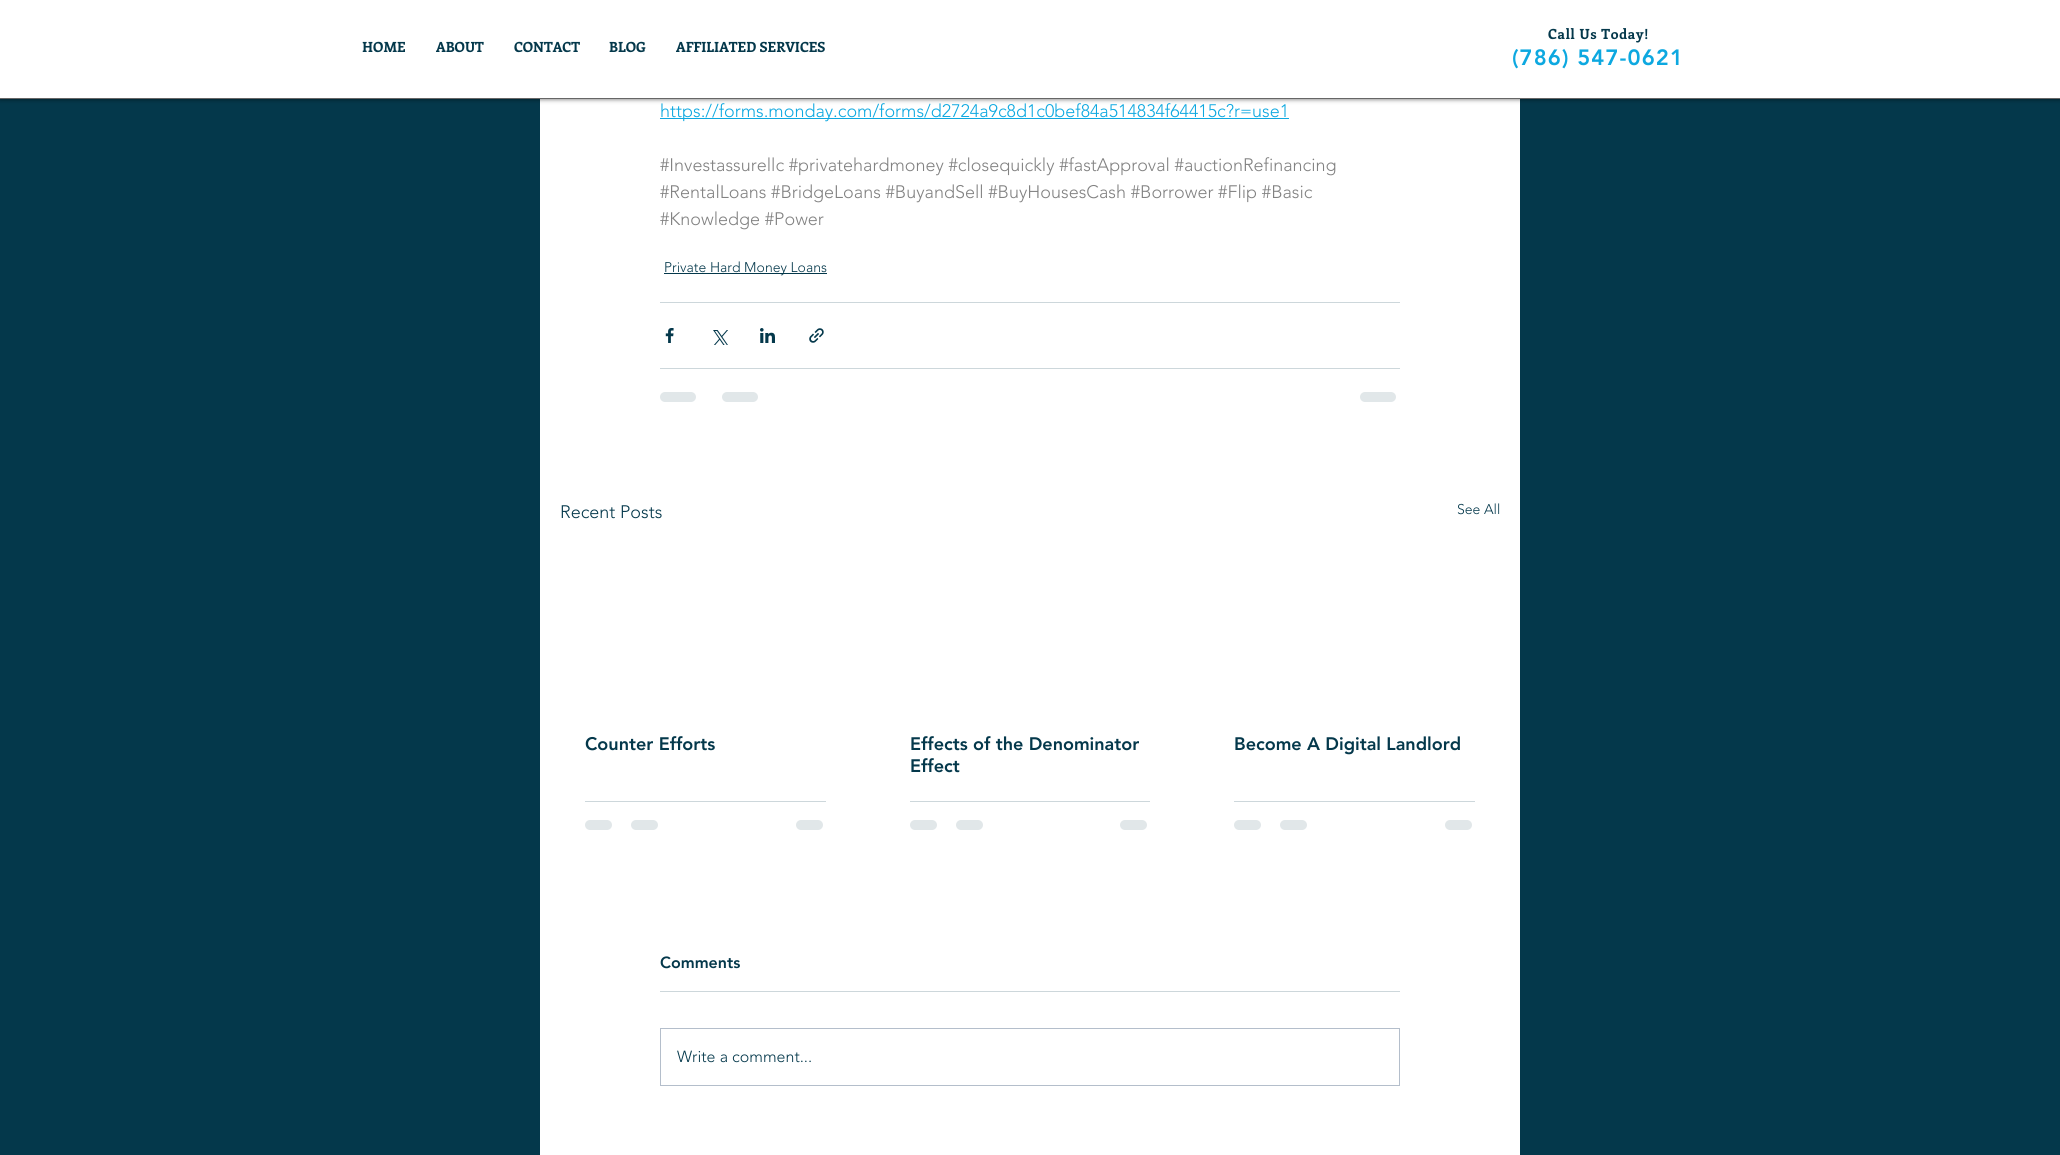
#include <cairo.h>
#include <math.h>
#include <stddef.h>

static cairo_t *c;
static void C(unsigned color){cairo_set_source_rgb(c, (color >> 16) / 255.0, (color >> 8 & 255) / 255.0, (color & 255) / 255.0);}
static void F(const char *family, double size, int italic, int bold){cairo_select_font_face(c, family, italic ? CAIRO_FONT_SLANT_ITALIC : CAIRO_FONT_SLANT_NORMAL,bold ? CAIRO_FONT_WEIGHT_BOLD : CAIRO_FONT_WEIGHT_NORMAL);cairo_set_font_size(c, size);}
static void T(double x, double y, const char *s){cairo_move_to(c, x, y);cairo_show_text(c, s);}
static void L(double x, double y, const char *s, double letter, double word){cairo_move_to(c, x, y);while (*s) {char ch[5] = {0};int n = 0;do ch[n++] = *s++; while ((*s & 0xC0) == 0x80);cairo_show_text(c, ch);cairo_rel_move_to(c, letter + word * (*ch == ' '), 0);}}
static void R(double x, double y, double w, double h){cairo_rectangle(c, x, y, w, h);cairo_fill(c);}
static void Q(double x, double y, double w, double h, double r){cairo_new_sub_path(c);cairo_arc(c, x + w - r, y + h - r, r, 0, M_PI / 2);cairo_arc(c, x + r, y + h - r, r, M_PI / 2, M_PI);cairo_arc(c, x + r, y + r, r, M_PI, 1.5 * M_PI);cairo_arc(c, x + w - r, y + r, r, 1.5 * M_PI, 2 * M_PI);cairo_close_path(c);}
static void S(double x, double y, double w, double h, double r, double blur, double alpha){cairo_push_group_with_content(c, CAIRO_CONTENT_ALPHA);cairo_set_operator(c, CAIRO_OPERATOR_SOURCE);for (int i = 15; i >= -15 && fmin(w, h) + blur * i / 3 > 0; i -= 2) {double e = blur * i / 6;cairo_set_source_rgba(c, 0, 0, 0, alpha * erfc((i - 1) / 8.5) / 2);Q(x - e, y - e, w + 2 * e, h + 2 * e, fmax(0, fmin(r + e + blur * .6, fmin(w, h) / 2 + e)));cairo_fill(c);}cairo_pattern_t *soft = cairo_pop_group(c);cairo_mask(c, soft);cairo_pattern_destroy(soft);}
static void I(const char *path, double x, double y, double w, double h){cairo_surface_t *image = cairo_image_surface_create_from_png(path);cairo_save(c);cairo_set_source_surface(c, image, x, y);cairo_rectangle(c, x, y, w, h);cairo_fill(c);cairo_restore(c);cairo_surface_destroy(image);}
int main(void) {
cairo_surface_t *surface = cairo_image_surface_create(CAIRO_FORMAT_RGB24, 2060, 1155);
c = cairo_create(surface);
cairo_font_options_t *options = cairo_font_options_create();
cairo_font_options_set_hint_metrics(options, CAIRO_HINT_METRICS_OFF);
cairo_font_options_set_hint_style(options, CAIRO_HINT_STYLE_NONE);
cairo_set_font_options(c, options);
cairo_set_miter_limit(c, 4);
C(0x04384b);
cairo_paint(c);
C(0xffffff);
R(540,99,980,1056);
C(0x000000);
S(0,0,2060,99,0,2.5,.6);
C(0xffffff);
R(0,0,2060,98);
C(0x666666);
R(0,98,2060,1);
F("Enriqueta",14,0,1);
C(0x04384b);
L(1548,39,"Call Us Today!",.75,0);
T(362,52,"HOME");
T(436,52,"ABOUT");
T(514,52,"CONTACT");
T(609,52,"BLOG");
T(676,52,"AFFILIATED SERVICES");
F("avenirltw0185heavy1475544 Black",22,0,0);
C(0x0da8e0);
L(1512,65,"(786) 547-0621",1.1,0);
R(660,118,629,1);
F("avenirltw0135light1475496 Light",18,0,0);
T(660,117,"https://forms.monday.com/forms/d2724a9c8d1c0bef84a514834f64415c?r=use1");
C(0x828282);
T(660,171,"#Investassurellc #privatehardmoney #closequickly #fastApproval #auctionRefinancing");
T(660,198,"#RentalLoans #BridgeLoans #BuyandSell #BuyHousesCash #Borrower #Flip #Basic");
T(660,225,"#Knowledge #Power");
C(0x04384b);
R(664,273,163,1);
F("avenirltw0135light1475496 Light",14,0,0);
T(664,272,"Private Hard Money Loans");
C(0xcdd7db);
R(660,302,740,1);
I("1.png",665,328,9,15);
I("2.png",713,330,15,15);
I("3.png",760,328,15,15);
I("4.png",809,328,15,15);
R(660,368,740,1);
C(0xe1e7e9);
Q(660,392,36,10,5);
cairo_fill(c);
Q(722,392,36,10,5);
cairo_fill(c);
Q(1360,392,36,10,5);
cairo_fill(c);
F("avenirltw0135light1475496 Light",18,0,0);
C(0x04384b);
T(560,518,"Recent Posts");
F("avenirltw0135light1475496 Light",14,0,0);
T(1457,514,"See All");
F("avenirltw0185heavy1475544 Black",18,0,0);
T(585,750,"Counter Efforts");
C(0xcdd7db);
R(585,801,241,1);
C(0xe1e7e9);
Q(585,820,27,10,5);
cairo_fill(c);
Q(631,820,27,10,5);
cairo_fill(c);
Q(796,820,27,10,5);
cairo_fill(c);
C(0x04384b);
T(910,750,"Effects of the Denominator");
T(910,772,"Effect");
C(0xcdd7db);
R(910,801,240,1);
C(0xe1e7e9);
Q(910,820,27,10,5);
cairo_fill(c);
Q(956,820,27,10,5);
cairo_fill(c);
Q(1120,820,27,10,5);
cairo_fill(c);
C(0x04384b);
T(1234,750,"Become A Digital Landlord");
C(0xcdd7db);
R(1234,801,241,1);
C(0xe1e7e9);
Q(1234,820,27,10,5);
cairo_fill(c);
Q(1280,820,27,10,5);
cairo_fill(c);
Q(1445,820,27,10,5);
cairo_fill(c);
F("avenirltw0185heavy1475544 Black",16,0,0);
C(0x04384b);
T(660,968,"Comments");
C(0xcdd7db);
R(660,991,740,1);
cairo_rectangle(c,660.5,1028.5,739,57);
C(0xb4becb);
cairo_set_line_width(c,1);
cairo_stroke(c);
F("avenirltw0135light1475496 Light",16,0,0);
C(0x04384b);
T(677,1062,"Write a comment...");
cairo_surface_write_to_png(surface, "o.png");
cairo_font_options_destroy(options);
cairo_destroy(c);
cairo_surface_destroy(surface);
return 0;
}
